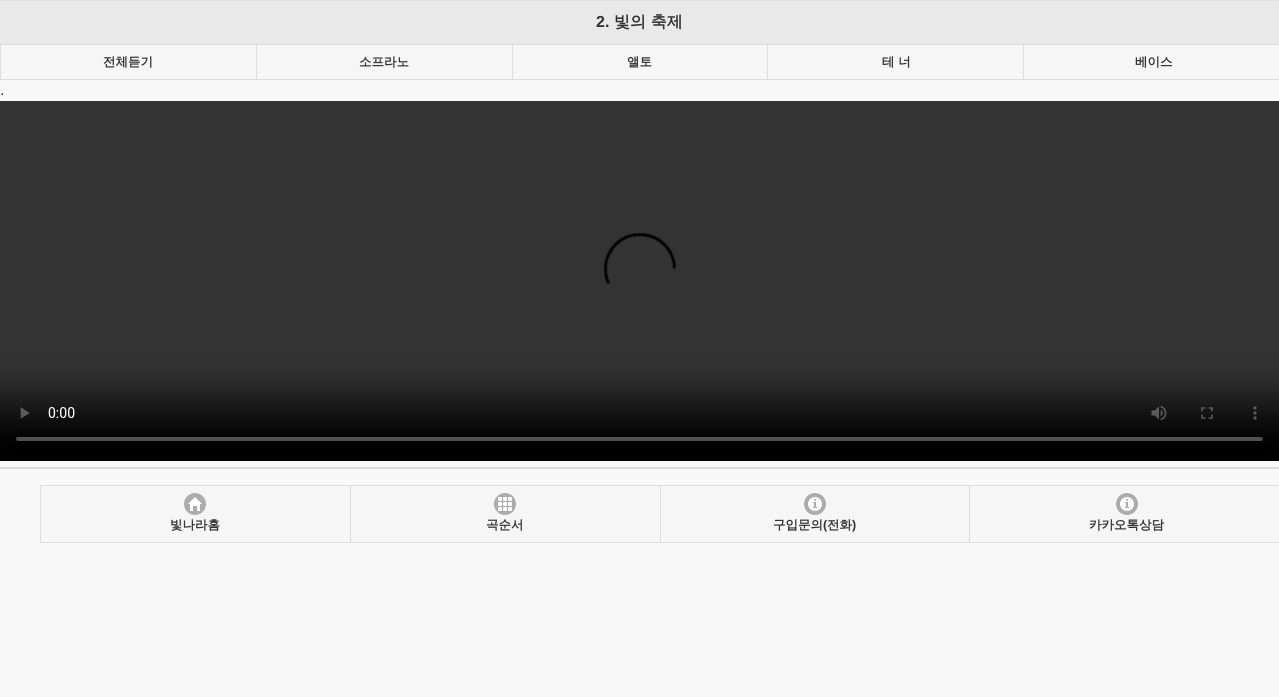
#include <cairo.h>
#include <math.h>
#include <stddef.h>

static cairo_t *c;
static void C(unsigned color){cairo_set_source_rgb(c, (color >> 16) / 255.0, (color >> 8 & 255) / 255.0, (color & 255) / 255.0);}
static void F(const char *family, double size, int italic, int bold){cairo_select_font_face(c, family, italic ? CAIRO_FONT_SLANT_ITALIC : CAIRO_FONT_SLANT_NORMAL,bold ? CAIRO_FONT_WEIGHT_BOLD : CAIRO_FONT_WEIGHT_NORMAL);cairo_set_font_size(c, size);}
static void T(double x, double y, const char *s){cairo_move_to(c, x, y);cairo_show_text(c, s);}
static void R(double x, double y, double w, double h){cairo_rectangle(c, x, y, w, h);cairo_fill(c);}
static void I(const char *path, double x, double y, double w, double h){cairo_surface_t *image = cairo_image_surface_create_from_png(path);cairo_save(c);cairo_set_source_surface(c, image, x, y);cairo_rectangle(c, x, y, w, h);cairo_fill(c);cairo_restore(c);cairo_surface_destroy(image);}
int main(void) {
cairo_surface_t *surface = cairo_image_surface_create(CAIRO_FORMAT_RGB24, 1279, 697);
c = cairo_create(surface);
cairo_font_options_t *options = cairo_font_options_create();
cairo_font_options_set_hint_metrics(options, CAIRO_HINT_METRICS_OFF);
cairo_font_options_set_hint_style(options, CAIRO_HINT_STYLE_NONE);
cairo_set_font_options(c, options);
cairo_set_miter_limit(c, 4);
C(0xf9f9f9);
cairo_paint(c);
C(0xe9e9e9);
R(0,1,1279,43);
C(0xdddddd);
R(0,0,1279,1);
R(0,79,1279,1);
F("Liberation Sans",16,0,1);
C(0x333333);
T(596,27,"2.");
F("WenQuanYi Zen Hei",16,0,1);
T(614,27,"빛의 축제");
C(0xf6f6f6);
R(1,45,255,34);
C(0xdddddd);
R(0,44,1279,1);
R(0,44,1,35);
F("WenQuanYi Zen Hei",12.5,0,1);
C(0x333333);
T(103,66,"전체듣기");
C(0xf6f6f6);
R(257,45,255,34);
C(0xdddddd);
R(256,44,1,35);
C(0x333333);
T(359,66,"소프라노");
C(0xf6f6f6);
R(513,45,254,34);
C(0xdddddd);
R(512,44,1,35);
C(0x333333);
T(627,66,"앨토");
C(0xf6f6f6);
R(768,45,255,34);
C(0xdddddd);
R(767,44,1,35);
C(0x333333);
T(882,66,"테 너");
C(0xf6f6f6);
R(1024,45,255,34);
C(0xdddddd);
R(1023,44,1,35);
C(0x333333);
T(1135,66,"베이스");
F("Liberation Sans",16,0,0);
T(0,95,".");
I("1.png",0,101,1279,360);
C(0xdddddd);
R(0,467,1279,2);
R(40,485,1239,1);
R(40,542,1239,1);
C(0xf6f6f6);
R(41,486,309,56);
C(0xdddddd);
R(40,486,1,56);
C(0xacacac);
cairo_arc(c,195,504,11,0,2 * M_PI);
cairo_fill(c);
I("2.png",188,497,14,14);
F("WenQuanYi Zen Hei",12.5,0,1);
C(0x333333);
T(170,529,"빛나라홈");
C(0xf6f6f6);
R(351,486,309,56);
C(0xdddddd);
R(350,486,1,56);
C(0xacacac);
cairo_new_path(c);
cairo_arc(c,505,504,11,0,2 * M_PI);
cairo_fill(c);
I("3.png",498,497,14,14);
C(0x333333);
T(486,529,"곡순서");
C(0xf6f6f6);
R(661,486,308,56);
C(0xdddddd);
R(660,486,1,56);
C(0xacacac);
cairo_new_path(c);
cairo_arc(c,815,504,11,0,2 * M_PI);
cairo_fill(c);
I("4.png",808,497,14,14);
C(0x333333);
T(773,529,"구입문의");
F("Liberation Sans",12.5,0,1);
T(823,529,"(");
F("WenQuanYi Zen Hei",12.5,0,1);
T(827,529,"전화");
F("Liberation Sans",12.5,0,1);
T(852,529,")");
C(0xf6f6f6);
R(970,486,309,56);
C(0xdddddd);
R(969,486,1,56);
C(0xacacac);
cairo_new_path(c);
cairo_arc(c,1127,504,11,0,2 * M_PI);
cairo_fill(c);
I("4.png",1120,497,14,14);
F("WenQuanYi Zen Hei",12.5,0,1);
C(0x333333);
T(1089,529,"카카오톡상담");
cairo_surface_write_to_png(surface, "o.png");
cairo_font_options_destroy(options);
cairo_destroy(c);
cairo_surface_destroy(surface);
return 0;
}
